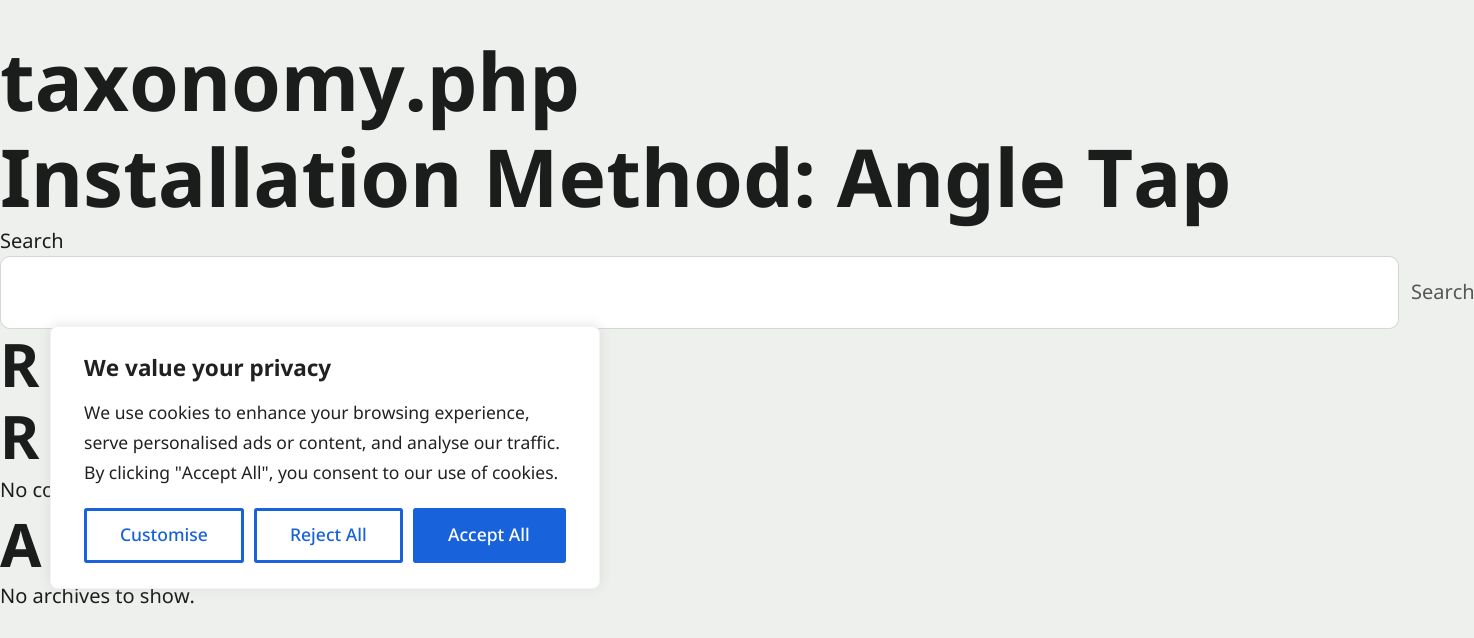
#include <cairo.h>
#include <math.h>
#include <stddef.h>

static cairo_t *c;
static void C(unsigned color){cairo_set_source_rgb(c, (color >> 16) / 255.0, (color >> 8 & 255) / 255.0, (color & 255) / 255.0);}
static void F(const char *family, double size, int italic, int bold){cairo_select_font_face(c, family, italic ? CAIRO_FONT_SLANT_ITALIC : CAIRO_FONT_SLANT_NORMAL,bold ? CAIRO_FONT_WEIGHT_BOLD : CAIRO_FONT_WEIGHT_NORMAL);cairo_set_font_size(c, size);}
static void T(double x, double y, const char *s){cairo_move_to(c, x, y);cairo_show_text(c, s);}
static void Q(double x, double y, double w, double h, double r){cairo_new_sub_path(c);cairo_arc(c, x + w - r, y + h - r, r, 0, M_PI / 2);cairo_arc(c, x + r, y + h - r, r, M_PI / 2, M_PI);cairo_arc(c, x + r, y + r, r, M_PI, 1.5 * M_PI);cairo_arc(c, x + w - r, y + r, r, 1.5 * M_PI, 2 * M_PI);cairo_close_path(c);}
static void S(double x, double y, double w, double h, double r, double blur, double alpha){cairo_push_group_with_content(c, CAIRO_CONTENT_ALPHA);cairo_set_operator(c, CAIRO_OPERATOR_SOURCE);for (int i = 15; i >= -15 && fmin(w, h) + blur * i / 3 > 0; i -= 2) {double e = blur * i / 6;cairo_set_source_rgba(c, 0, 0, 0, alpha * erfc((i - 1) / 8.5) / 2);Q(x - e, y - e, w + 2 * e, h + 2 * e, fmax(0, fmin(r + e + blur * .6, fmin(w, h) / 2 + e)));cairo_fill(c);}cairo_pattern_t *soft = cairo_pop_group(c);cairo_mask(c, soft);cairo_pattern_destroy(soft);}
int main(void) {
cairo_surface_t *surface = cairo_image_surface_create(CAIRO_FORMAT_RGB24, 1474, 638);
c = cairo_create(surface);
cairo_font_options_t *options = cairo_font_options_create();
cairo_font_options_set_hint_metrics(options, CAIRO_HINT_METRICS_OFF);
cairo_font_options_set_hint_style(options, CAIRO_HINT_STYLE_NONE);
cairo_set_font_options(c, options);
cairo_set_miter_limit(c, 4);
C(0xeef0ee);
cairo_paint(c);
F("Noto Sans",80,0,1);
C(0x1a1d1b);
T(0,111,"taxonomy.php");
T(0,207,"Installation Method: Angle Tap");
F("Noto Sans",20,0,0);
T(0,248,"Search");
C(0xffffff);
Q(.5,256.5,1398,72,9.5);
cairo_fill_preserve(c);
C(0xd7d6d6);
cairo_set_line_width(c,1);
cairo_stroke(c);
C(0x565657);
T(1411,299,"Search");
F("Noto Sans",60,0,1);
C(0x1a1d1b);
T(0,387,"R");
T(0,459,"R");
F("Noto Sans",20,0,0);
T(0,497,"No co");
F("Noto Sans",60,0,1);
T(0,567,"A");
F("Noto Sans",20,0,0);
T(0,603,"No archives to show.");
C(0xacabab);
S(50,325,550,263,8,6,.3);
C(0xffffff);
Q(50.5,326.5,549,262,7.5);
cairo_fill_preserve(c);
C(0xf4f4f4);
cairo_stroke(c);
F("Noto Sans",22.5,0,1);
C(0x212121);
T(84,376,"We value your privacy");
F("Noto Sans",17.5,0,0);
T(84,419,"We use cookies to enhance your browsing experience,");
T(84,449,"serve personalised ads or content, and analyse our traffic.");
T(84,479,"By clicking \"Accept All\", you consent to our use of cookies.");
Q(85.5,509.5,157,52,1);
C(0x1863dc);
cairo_set_line_width(c,3);
cairo_stroke(c);
F("Noto Sans Medium",17.5,0,0);
T(120,541,"Customise");
Q(255.5,509.5,146,52,1);
cairo_stroke(c);
T(290,541,"Reject All");
Q(414.5,509.5,150,52,1);
cairo_fill_preserve(c);
cairo_stroke(c);
C(0xffffff);
T(448,541,"Accept All");
cairo_surface_write_to_png(surface, "o.png");
cairo_font_options_destroy(options);
cairo_destroy(c);
cairo_surface_destroy(surface);
return 0;
}
